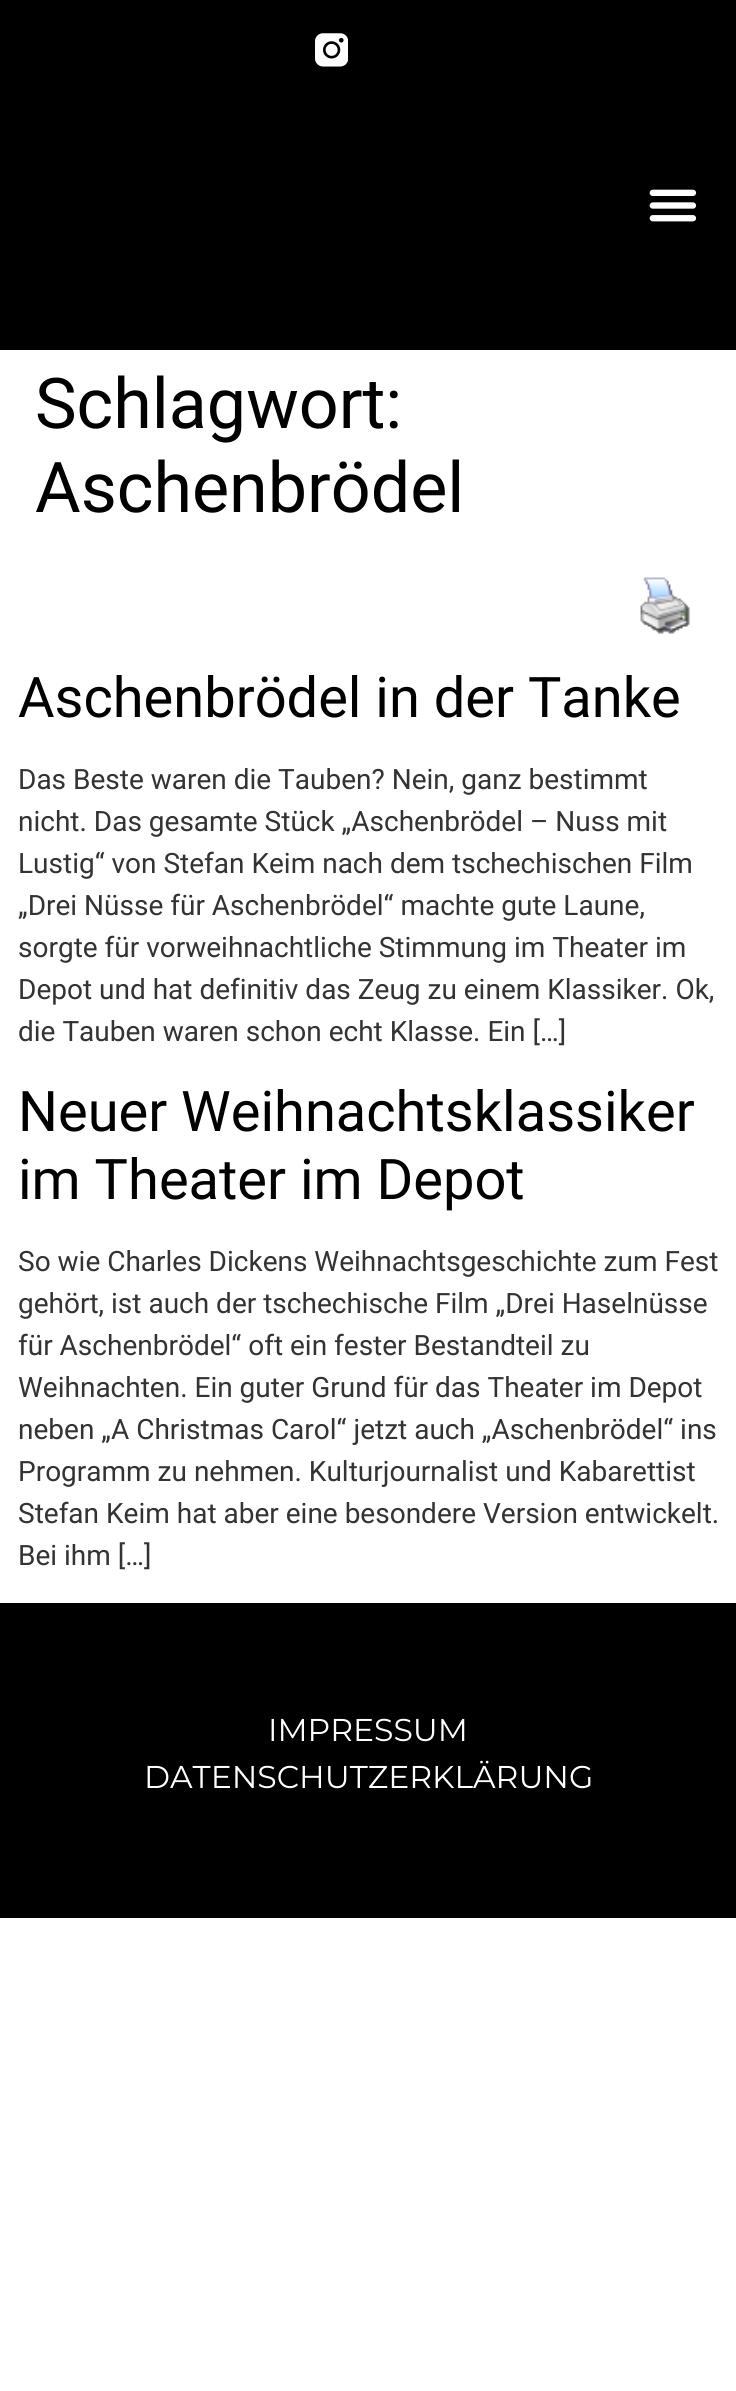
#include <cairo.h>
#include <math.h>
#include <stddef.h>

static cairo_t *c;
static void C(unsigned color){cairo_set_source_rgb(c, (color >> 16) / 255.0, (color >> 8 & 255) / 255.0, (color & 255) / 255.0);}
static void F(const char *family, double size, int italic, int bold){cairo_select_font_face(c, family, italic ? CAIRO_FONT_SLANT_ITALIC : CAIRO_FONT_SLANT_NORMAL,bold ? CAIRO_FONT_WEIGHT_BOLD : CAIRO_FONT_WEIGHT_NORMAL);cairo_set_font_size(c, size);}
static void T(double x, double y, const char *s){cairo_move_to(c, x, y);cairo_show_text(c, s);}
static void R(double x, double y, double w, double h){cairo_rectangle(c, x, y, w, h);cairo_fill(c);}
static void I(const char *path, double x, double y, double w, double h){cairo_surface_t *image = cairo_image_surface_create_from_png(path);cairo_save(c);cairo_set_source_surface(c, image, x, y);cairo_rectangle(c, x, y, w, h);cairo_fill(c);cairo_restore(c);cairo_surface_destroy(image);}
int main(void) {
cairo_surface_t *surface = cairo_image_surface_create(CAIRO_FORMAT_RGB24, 736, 2391);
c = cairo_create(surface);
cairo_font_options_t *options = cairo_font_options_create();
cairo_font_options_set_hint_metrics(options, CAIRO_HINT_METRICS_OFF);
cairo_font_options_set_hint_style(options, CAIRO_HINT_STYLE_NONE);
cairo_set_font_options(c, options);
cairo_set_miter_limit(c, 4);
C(0xffffff);
cairo_paint(c);
C(0x000000);
R(0,0,736,350);
I("1.png",315,33,33,34);
I("2.png",649,189,48,33);
F("Roboto",70,0,0);
T(35,428,"Schlagwort:");
T(35,512,"Aschenbrödel");
I("3.png",640,577,50,57);
F("Roboto",56,0,0);
T(18,717,"Aschenbrödel in der Tanke");
F("Roboto",28,0,0);
C(0x333333);
T(18,789,"Das Beste waren die Tauben? Nein, ganz bestimmt");
T(18,831,"nicht. Das gesamte Stück „Aschenbrödel – Nuss mit");
T(18,873,"Lustig“ von Stefan Keim nach dem tschechischen Film");
T(18,915,"„Drei Nüsse für Aschenbrödel“ machte gute Laune,");
T(18,957,"sorgte für vorweihnachtliche Stimmung im Theater im");
T(18,999,"Depot und hat definitiv das Zeug zu einem Klassiker. Ok,");
T(18,1041,"die Tauben waren schon echt Klasse. Ein […]");
F("Roboto",56,0,0);
C(0x000000);
T(18,1131,"Neuer Weihnachtsklassiker");
T(18,1199,"im Theater im Depot");
F("Roboto",28,0,0);
C(0x333333);
T(18,1271,"So wie Charles Dickens Weihnachtsgeschichte zum Fest");
T(18,1313,"gehört, ist auch der tschechische Film „Drei Haselnüsse");
T(18,1355,"für Aschenbrödel“ oft ein fester Bestandteil zu");
T(18,1397,"Weihnachten. Ein guter Grund für das Theater im Depot");
T(18,1439,"neben „A Christmas Carol“ jetzt auch „Aschenbrödel“ ins");
T(18,1481,"Programm zu nehmen. Kulturjournalist und Kabarettist");
T(18,1523,"Stefan Keim hat aber eine besondere Version entwickelt.");
T(18,1565,"Bei ihm […]");
C(0x000000);
R(0,1603,736,315);
F("Montserrat",31.5,0,0);
C(0xffffff);
T(268,1741,"IMPRESSUM");
T(144,1788,"DATENSCHUTZERKLÄRUNG");
cairo_surface_write_to_png(surface, "o.png");
cairo_font_options_destroy(options);
cairo_destroy(c);
cairo_surface_destroy(surface);
return 0;
}
